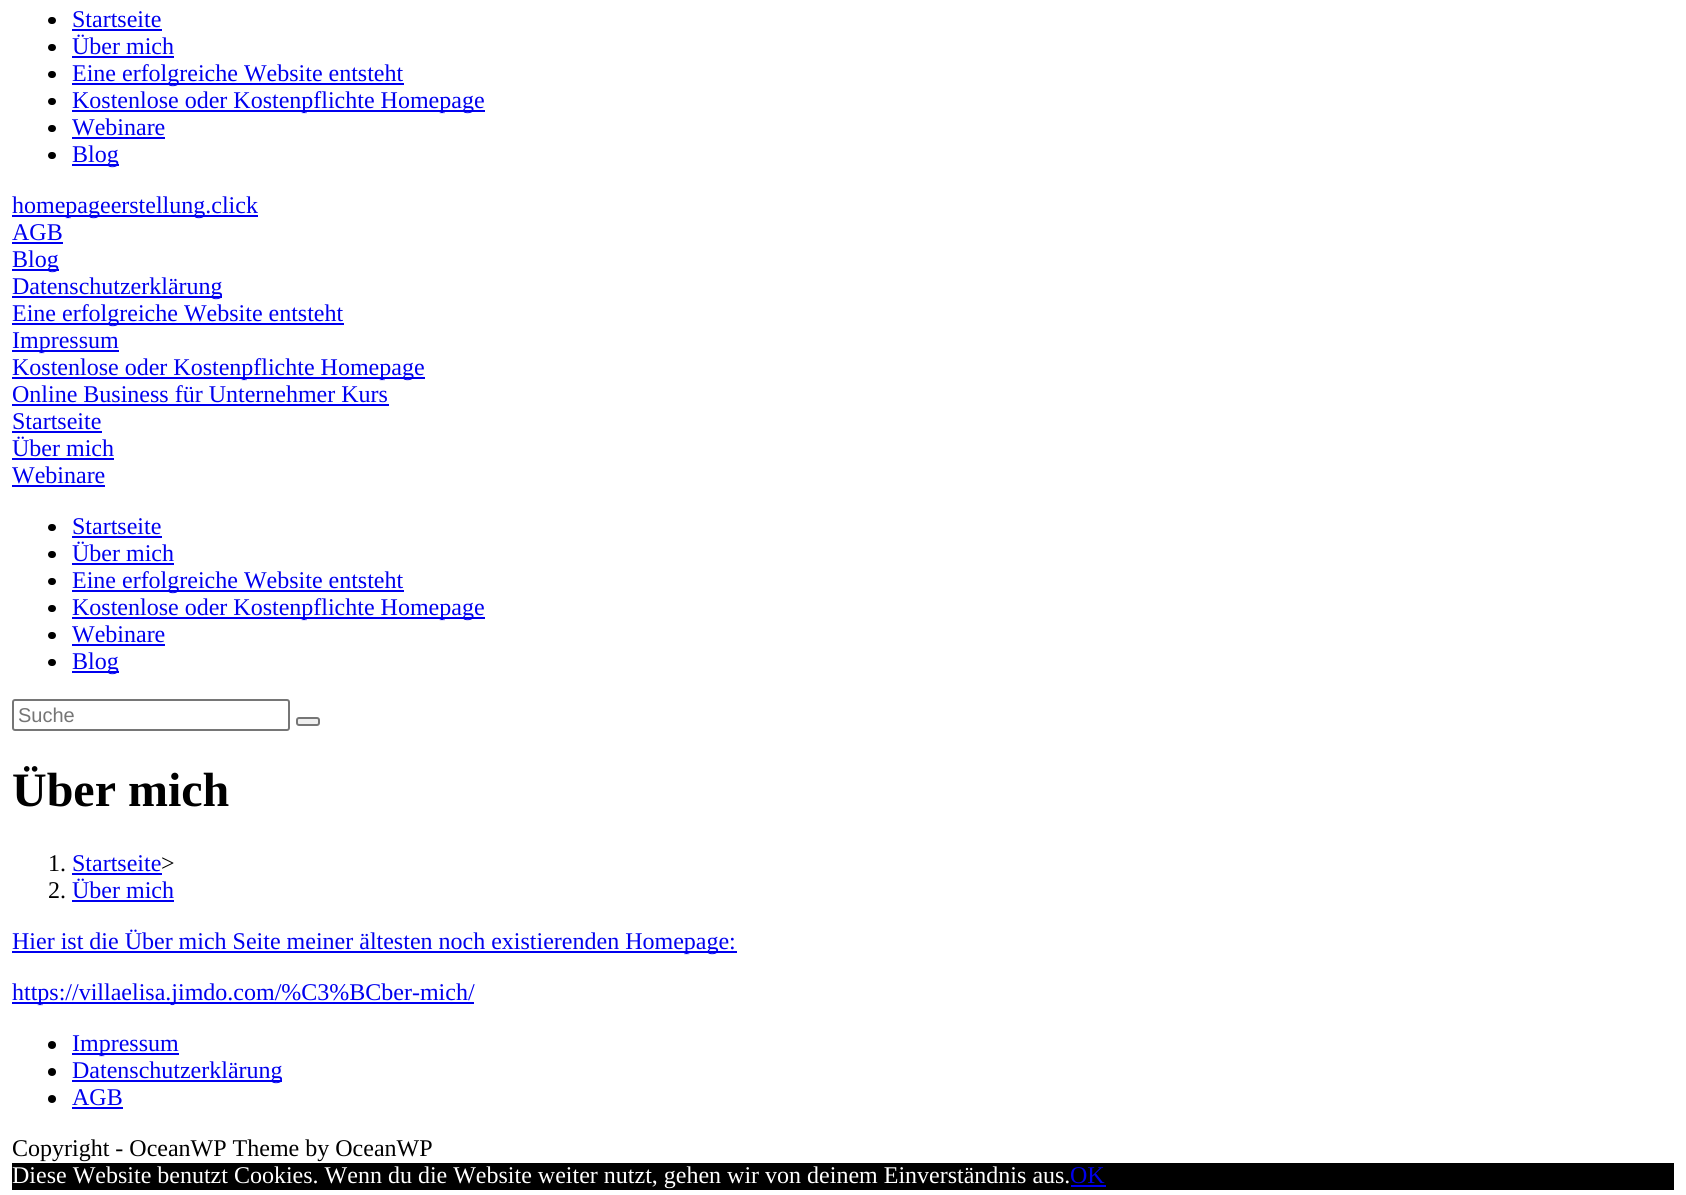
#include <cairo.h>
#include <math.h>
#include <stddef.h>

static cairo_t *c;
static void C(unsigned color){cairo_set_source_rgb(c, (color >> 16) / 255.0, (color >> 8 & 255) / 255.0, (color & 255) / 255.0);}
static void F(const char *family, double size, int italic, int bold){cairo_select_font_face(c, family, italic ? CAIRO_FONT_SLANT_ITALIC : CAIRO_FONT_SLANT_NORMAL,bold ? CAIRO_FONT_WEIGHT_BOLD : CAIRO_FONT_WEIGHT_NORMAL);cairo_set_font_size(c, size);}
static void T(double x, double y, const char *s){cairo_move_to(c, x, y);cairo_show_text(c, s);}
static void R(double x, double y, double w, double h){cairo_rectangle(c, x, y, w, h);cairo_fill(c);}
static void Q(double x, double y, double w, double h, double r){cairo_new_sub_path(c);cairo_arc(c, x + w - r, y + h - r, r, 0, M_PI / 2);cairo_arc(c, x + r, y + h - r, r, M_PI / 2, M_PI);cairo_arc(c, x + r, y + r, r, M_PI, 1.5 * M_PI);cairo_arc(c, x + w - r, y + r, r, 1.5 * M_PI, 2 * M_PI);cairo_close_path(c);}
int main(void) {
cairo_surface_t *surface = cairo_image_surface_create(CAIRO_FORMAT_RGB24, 1686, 1195);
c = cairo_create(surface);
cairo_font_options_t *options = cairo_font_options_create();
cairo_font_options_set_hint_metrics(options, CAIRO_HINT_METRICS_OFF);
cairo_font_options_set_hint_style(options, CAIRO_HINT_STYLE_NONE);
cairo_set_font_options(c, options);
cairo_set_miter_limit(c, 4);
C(0xffffff);
cairo_paint(c);
C(0x000000);
Q(48,17,8,7,3.5);
cairo_fill(c);
F("Liberation Serif",24,0,0);
C(0x0000ee);
T(72,27,"Startseite");
R(72,29,90,2);
C(0x000000);
Q(48,44,8,7,3.5);
cairo_fill(c);
C(0x0000ee);
T(72,54,"Über mich");
R(72,56,102,2);
C(0x000000);
Q(48,71,8,7,3.5);
cairo_fill(c);
C(0x0000ee);
R(72,83,332,2);
T(72,81,"Eine erfolgreiche Website entsteht");
C(0x000000);
Q(48,98,8,7,3.5);
cairo_fill(c);
C(0x0000ee);
R(72,110,413,2);
T(72,108,"Kostenlose oder Kostenpflichte Homepage");
C(0x000000);
Q(48,125,8,7,3.5);
cairo_fill(c);
C(0x0000ee);
T(72,135,"Webinare");
R(72,137,93,2);
C(0x000000);
Q(48,152,8,7,3.5);
cairo_fill(c);
C(0x0000ee);
R(72,164,47,2);
T(72,162,"Blog");
R(12,215,246,2);
T(12,213,"homepageerstellung.click");
T(12,240,"AGB");
R(12,242,51,2);
R(12,269,47,2);
T(12,267,"Blog");
R(12,296,210,2);
T(12,294,"Datenschutzerklärung");
R(12,323,332,2);
T(12,321,"Eine erfolgreiche Website entsteht");
R(12,350,107,2);
T(12,348,"Impressum");
R(12,377,413,2);
T(12,375,"Kostenlose oder Kostenpflichte Homepage");
T(12,402,"Online Business für Unternehmer Kurs");
R(12,404,377,2);
T(12,429,"Startseite");
R(12,431,90,2);
T(12,456,"Über mich");
R(12,458,102,2);
T(12,483,"Webinare");
R(12,485,93,2);
C(0x000000);
Q(48,524,8,7,3.5);
cairo_fill(c);
C(0x0000ee);
T(72,534,"Startseite");
R(72,536,90,2);
C(0x000000);
Q(48,551,8,7,3.5);
cairo_fill(c);
C(0x0000ee);
T(72,561,"Über mich");
R(72,563,102,2);
C(0x000000);
Q(48,578,8,7,3.5);
cairo_fill(c);
C(0x0000ee);
R(72,590,332,2);
T(72,588,"Eine erfolgreiche Website entsteht");
C(0x000000);
Q(48,605,8,7,3.5);
cairo_fill(c);
C(0x0000ee);
R(72,617,413,2);
T(72,615,"Kostenlose oder Kostenpflichte Homepage");
C(0x000000);
Q(48,632,8,7,3.5);
cairo_fill(c);
C(0x0000ee);
T(72,642,"Webinare");
R(72,644,93,2);
C(0x000000);
Q(48,659,8,7,3.5);
cairo_fill(c);
C(0x0000ee);
R(72,671,47,2);
T(72,669,"Blog");
Q(13,700,276,30,2);
C(0x767676);
cairo_stroke(c);
F("Liberation Sans",20,0,0);
C(0x757575);
T(18,722,"Suche");
C(0xefefef);
Q(297,718,22,7,2);
cairo_fill_preserve(c);
C(0x767676);
cairo_stroke(c);
F("Liberation Serif",48,0,1);
C(0x000000);
T(12,806,"Über mich");
F("Liberation Serif",24,0,0);
T(48,871,"1.");
C(0x0000ee);
T(72,871,"Startseite");
R(72,873,90,2);
C(0x000000);
T(161,871,">");
T(48,898,"2.");
C(0x0000ee);
T(72,898,"Über mich");
R(72,900,102,2);
R(12,951,725,2);
T(12,949,"Hier ist die Über mich Seite meiner ältesten noch existierenden Homepage:");
R(12,1002,462,2);
T(12,1000,"https://villaelisa.jimdo.com/%C3%BCber-mich/");
C(0x000000);
cairo_new_path(c);
cairo_arc(c,52,1045,4,0,2 * M_PI);
cairo_fill(c);
C(0x0000ee);
R(72,1053,107,2);
T(72,1051,"Impressum");
C(0x000000);
cairo_new_path(c);
cairo_arc(c,52,1072,4,0,2 * M_PI);
cairo_fill(c);
C(0x0000ee);
R(72,1080,210,2);
T(72,1078,"Datenschutzerklärung");
C(0x000000);
cairo_new_path(c);
cairo_arc(c,52,1099,4,0,2 * M_PI);
cairo_fill(c);
C(0x0000ee);
T(72,1105,"AGB");
R(72,1107,51,2);
C(0x000000);
T(12,1156,"Copyright - OceanWP Theme by OceanWP");
R(12,1163,1662,27);
C(0xffffff);
T(12,1183,"Diese Website benutzt Cookies. Wenn du die Website weiter nutzt, gehen wir von deinem Einverständnis aus.");
C(0x0000ee);
T(1070,1183,"OK");
R(1071,1185,35,2);
cairo_surface_write_to_png(surface, "o.png");
cairo_font_options_destroy(options);
cairo_destroy(c);
cairo_surface_destroy(surface);
return 0;
}
